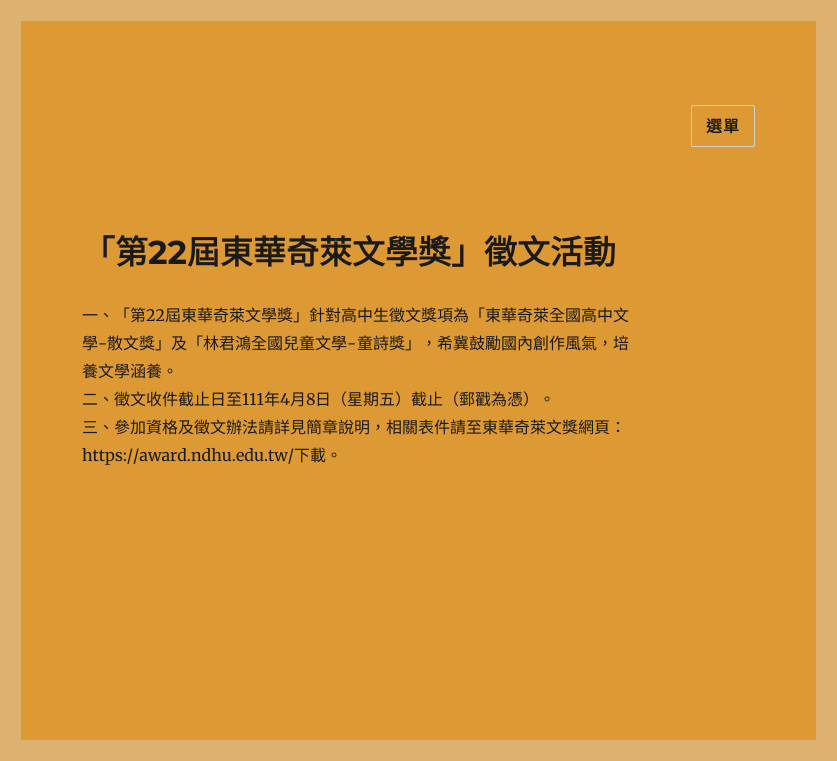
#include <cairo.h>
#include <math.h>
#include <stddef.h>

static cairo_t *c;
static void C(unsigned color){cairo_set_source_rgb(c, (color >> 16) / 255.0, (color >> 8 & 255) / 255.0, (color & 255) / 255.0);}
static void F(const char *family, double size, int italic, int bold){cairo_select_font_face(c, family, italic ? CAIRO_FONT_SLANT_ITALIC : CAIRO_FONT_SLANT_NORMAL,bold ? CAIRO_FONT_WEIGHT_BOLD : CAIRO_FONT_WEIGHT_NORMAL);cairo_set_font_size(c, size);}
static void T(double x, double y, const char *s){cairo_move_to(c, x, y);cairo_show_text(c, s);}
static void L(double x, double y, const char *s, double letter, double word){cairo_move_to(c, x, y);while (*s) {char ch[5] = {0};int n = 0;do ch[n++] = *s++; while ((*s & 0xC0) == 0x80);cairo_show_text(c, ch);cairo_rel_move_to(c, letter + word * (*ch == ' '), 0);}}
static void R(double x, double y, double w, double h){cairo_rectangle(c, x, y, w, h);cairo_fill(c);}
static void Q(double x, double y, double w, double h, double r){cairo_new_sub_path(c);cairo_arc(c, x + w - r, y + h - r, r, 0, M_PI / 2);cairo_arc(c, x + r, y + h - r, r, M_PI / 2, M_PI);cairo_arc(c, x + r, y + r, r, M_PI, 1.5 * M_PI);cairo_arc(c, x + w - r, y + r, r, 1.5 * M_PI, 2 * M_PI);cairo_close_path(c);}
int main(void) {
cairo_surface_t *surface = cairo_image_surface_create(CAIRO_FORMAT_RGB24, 837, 761);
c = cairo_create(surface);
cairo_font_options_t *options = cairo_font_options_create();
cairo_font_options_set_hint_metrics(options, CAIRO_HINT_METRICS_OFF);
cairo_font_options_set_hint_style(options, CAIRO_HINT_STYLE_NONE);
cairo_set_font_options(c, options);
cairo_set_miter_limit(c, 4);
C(0xddb271);
cairo_paint(c);
C(0xdd9933);
R(21,21,795,719);
Q(691.5,105.5,63,41,1.5);
C(0xd1d1d1);
cairo_set_line_width(c,1);
cairo_stroke(c);
F("Noto Sans CJK TC",16,0,1);
C(0x1a1a1a);
L(706,132,"選單",1,0);
F("Noto Sans CJK TC",33,0,1);
T(82,264,"「第");
F("Montserrat",33,0,1);
T(148,264,"22");
F("Noto Sans CJK TC",33,0,1);
T(187,264,"屆東華奇萊文學獎」徵文活動");
F("Noto Sans CJK TC",16,0,0);
T(82,321,"一、「第");
F("Merriweather",16,0,0);
T(146,321,"22");
F("Noto Sans CJK TC",16,0,0);
T(165,321,"屆東華奇萊文學獎」針對高中生徵文獎項為「東華奇萊全國高中文");
T(82,349,"學");
F("Merriweather",16,0,0);
T(98,349,"-");
F("Noto Sans CJK TC",16,0,0);
T(107,349,"散文獎」及「林君鴻全國兒童文學");
F("Merriweather",16,0,0);
T(347,349,"-");
F("Noto Sans CJK TC",16,0,0);
T(357,349,"童詩獎」，希冀鼓勵國內創作風氣，培");
T(82,377,"養文學涵養。");
T(82,405,"二、徵文收件截止日至");
F("Merriweather",16,0,0);
T(242,405,"111");
F("Noto Sans CJK TC",16,0,0);
T(264,405,"年");
F("Merriweather",16,0,0);
T(280,405,"4");
F("Noto Sans CJK TC",16,0,0);
T(290,405,"月");
F("Merriweather",16,0,0);
T(306,405,"8");
F("Noto Sans CJK TC",16,0,0);
T(315,405,"日（星期五）截止（郵戳為憑）。");
T(82,433,"三、參加資格及徵文辦法請詳見簡章說明，相關表件請至東華奇萊文獎網頁：");
F("Merriweather",16,0,0);
T(82,461,"https://award.ndhu.edu.tw/");
F("Noto Sans CJK TC",16,0,0);
T(294,461,"下載。");
cairo_surface_write_to_png(surface, "o.png");
cairo_font_options_destroy(options);
cairo_destroy(c);
cairo_surface_destroy(surface);
return 0;
}
